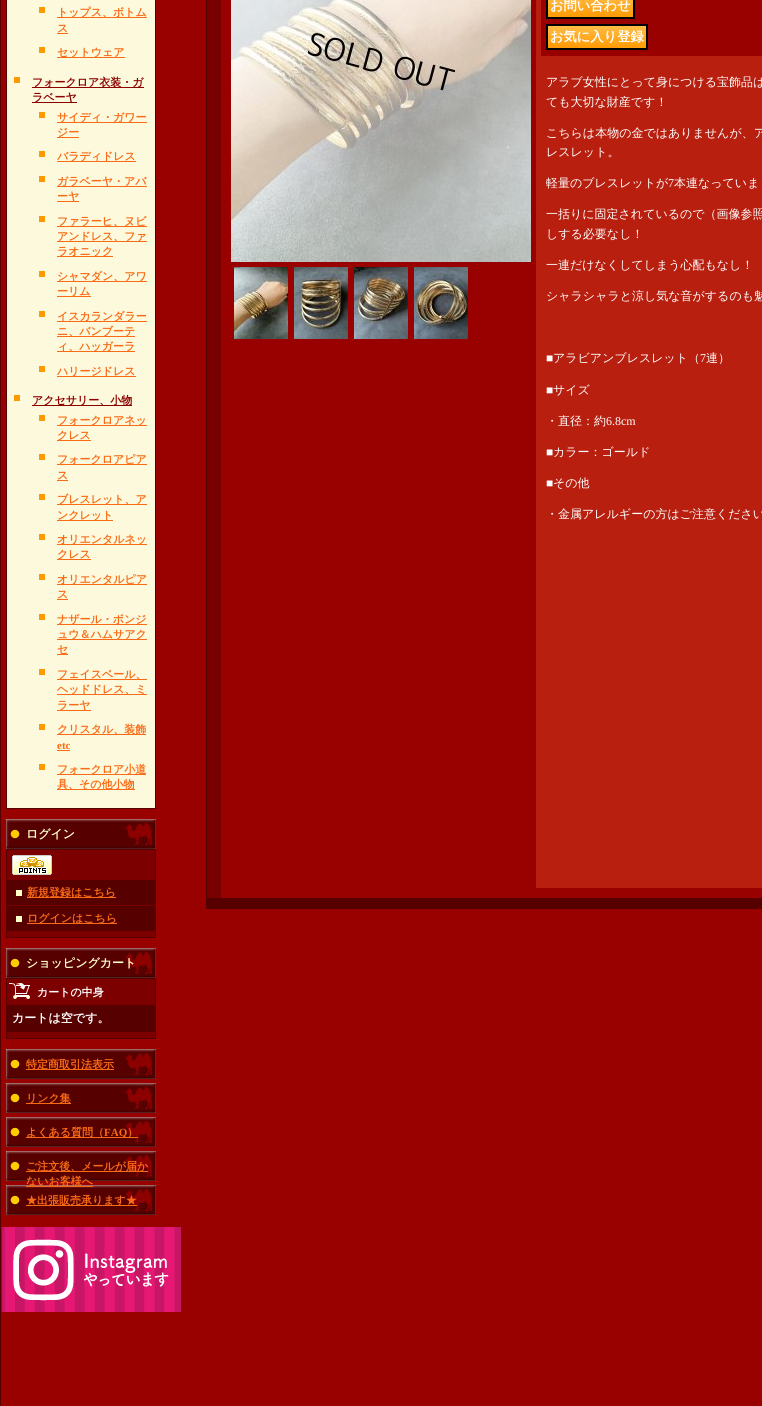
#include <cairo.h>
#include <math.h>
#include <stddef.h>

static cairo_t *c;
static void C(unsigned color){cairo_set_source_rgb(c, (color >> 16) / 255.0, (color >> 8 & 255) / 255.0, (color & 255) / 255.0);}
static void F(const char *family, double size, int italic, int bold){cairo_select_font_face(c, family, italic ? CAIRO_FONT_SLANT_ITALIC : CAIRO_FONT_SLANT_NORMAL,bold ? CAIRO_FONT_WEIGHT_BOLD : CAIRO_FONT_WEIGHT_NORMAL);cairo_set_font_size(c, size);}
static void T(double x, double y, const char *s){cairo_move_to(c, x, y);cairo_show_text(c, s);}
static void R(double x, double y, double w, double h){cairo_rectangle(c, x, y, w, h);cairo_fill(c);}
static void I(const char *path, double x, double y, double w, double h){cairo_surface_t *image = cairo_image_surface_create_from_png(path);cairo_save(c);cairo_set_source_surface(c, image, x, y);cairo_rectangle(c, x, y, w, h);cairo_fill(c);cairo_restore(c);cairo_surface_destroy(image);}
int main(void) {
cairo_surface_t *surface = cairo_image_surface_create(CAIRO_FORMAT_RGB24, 762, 1406);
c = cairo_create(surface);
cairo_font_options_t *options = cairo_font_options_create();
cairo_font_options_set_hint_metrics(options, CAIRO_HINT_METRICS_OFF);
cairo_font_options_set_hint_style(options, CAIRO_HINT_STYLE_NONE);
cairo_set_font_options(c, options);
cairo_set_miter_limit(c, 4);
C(0x990000);
cairo_paint(c);
C(0x570000);
R(0,0,1,1406);
C(0xfcf9dc);
cairo_rectangle(c,6.5,-.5,149,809);
cairo_fill_preserve(c);
C(0x570000);
cairo_set_line_width(c,1);
cairo_stroke(c);
C(0xff9900);
R(39,7,6,6);
C(0xf96b15);
R(57,17,90,1);
F("WenQuanYi Zen Hei",11,0,1);
T(57,16,"トップス、ボトム");
T(57,32,"ス");
R(57,33,11,1);
C(0xff9900);
R(39,47,6,6);
C(0xf96b15);
R(57,57,68,1);
T(57,56,"セットウェア");
C(0xff9900);
R(14,77,6,6);
C(0x8c0000);
R(32,87,112,1);
T(32,86,"フォークロア衣装・ガ");
R(32,102,45,1);
T(32,101,"ラベーヤ");
C(0xff9900);
R(39,112,6,6);
C(0xf96b15);
R(57,122,90,1);
T(57,121,"サイディ・ガワー");
R(57,137,22,1);
T(57,136,"ジー");
C(0xff9900);
R(39,151,6,6);
C(0xf96b15);
R(57,161,79,1);
T(57,160,"バラディドレス");
C(0xff9900);
R(39,176,6,6);
C(0xf96b15);
R(57,186,90,1);
T(57,185,"ガラベーヤ・アバ");
R(57,201,22,1);
T(57,200,"ーヤ");
C(0xff9900);
R(39,216,6,6);
C(0xf96b15);
R(57,226,90,1);
T(57,225,"ファラーヒ、ヌビ");
R(57,241,90,1);
T(57,240,"アンドレス、ファ");
R(57,256,56,1);
T(57,255,"ラオニック");
C(0xff9900);
R(39,271,6,6);
C(0xf96b15);
R(57,281,90,1);
T(57,280,"シャマダン、アワ");
R(57,296,34,1);
T(57,295,"ーリム");
C(0xff9900);
R(39,311,6,6);
C(0xf96b15);
R(57,321,90,1);
T(57,320,"イスカランダラー");
R(57,336,78,1);
T(57,335,"ニ、バンブーテ");
R(57,351,78,1);
T(57,350,"ィ、ハッガーラ");
C(0xff9900);
R(39,366,6,6);
C(0xf96b15);
R(57,376,79,1);
T(57,375,"ハリージドレス");
C(0xff9900);
R(14,395,6,6);
C(0x8c0000);
R(32,405,100,1);
T(32,404,"アクセサリー、小物");
C(0xff9900);
R(39,415,6,6);
C(0xf96b15);
R(57,425,90,1);
T(57,424,"フォークロアネッ");
R(57,440,34,1);
T(57,439,"クレス");
C(0xff9900);
R(39,454,6,6);
C(0xf96b15);
R(57,464,90,1);
T(57,463,"フォークロアピア");
T(57,479,"ス");
R(57,480,11,1);
C(0xff9900);
R(39,494,6,6);
C(0xf96b15);
R(57,504,90,1);
T(57,503,"ブレスレット、ア");
R(57,520,56,1);
T(57,519,"ンクレット");
C(0xff9900);
R(39,534,6,6);
C(0xf96b15);
R(57,544,90,1);
T(57,543,"オリエンタルネッ");
R(57,559,34,1);
T(57,558,"クレス");
C(0xff9900);
R(39,574,6,6);
C(0xf96b15);
R(57,584,90,1);
T(57,583,"オリエンタルピア");
T(57,598,"ス");
R(57,599,11,1);
C(0xff9900);
R(39,614,6,6);
C(0xf96b15);
R(57,624,90,1);
T(57,623,"ナザール・ボンジ");
R(57,639,90,1);
T(57,638,"ュウ＆ハムサアク");
T(57,653,"セ");
R(57,654,11,1);
C(0xff9900);
R(39,669,6,6);
C(0xf96b15);
R(57,679,90,1);
T(57,678,"フェイスベール、");
R(57,694,90,1);
T(57,693,"ヘッドドレス、ミ");
R(57,710,34,1);
T(57,709,"ラーヤ");
C(0xff9900);
R(39,724,6,6);
C(0xf96b15);
R(57,734,89,1);
T(57,733,"クリスタル、装飾");
F("Liberation Serif",11,0,1);
T(57,749,"etc");
R(57,750,13,1);
C(0xff9900);
R(39,764,6,6);
C(0xf96b15);
R(57,774,89,1);
F("WenQuanYi Zen Hei",11,0,1);
T(57,773,"フォークロア小道");
R(57,789,78,1);
T(57,788,"具、その他小物");
I("1.png",6,819,150,30);
F("WenQuanYi Zen Hei",12,0,1);
C(0xffffcc);
T(26,838,"ログイン");
C(0x7d0000);
cairo_rectangle(c,6.5,849.5,149,88);
cairo_fill_preserve(c);
C(0x570000);
cairo_stroke(c);
I("2.png",12,855,40,20);
R(7,880,148,25);
C(0xffffcc);
R(16,890,6,6);
C(0xf96b15);
R(27,897,89,1);
F("WenQuanYi Zen Hei",11,0,1);
T(27,896,"新規登録はこちら");
C(0x570000);
R(7,906,148,25);
C(0xffffcc);
R(16,916,6,6);
C(0xf96b15);
R(27,923,90,1);
T(27,922,"ログインはこちら");
I("1.png",6,948,150,30);
F("WenQuanYi Zen Hei",12,0,1);
C(0xffffcc);
T(26,967,"ショッピングカート");
C(0x7d0000);
cairo_rectangle(c,6.5,978.5,149,60);
cairo_fill_preserve(c);
C(0x570000);
cairo_stroke(c);
I("3.png",9,983,21,16);
F("WenQuanYi Zen Hei",11,0,1);
C(0xffffff);
T(37,996,"カートの中身");
C(0x570000);
R(7,1005,148,27);
F("WenQuanYi Zen Hei",12,0,1);
C(0xffffff);
T(12,1022,"カートは空です。");
I("1.png",6,1049,150,30);
C(0xf96b15);
R(26,1069,88,1);
F("WenQuanYi Zen Hei",11,0,1);
T(26,1068,"特定商取引法表示");
I("1.png",6,1083,150,30);
R(26,1103,45,1);
T(26,1102,"リンク集");
I("1.png",6,1117,150,30);
R(26,1137,112,1);
T(26,1136,"よくある質問（");
F("Liberation Serif",11,0,1);
T(104,1136,"FAQ");
F("WenQuanYi Zen Hei",11,0,1);
T(127,1136,"）");
I("1.png",6,1151,150,30);
R(26,1171,122,1);
T(26,1170,"ご注文後、メールが届か");
I("1.png",6,1185,150,30);
R(26,1186,67,1);
T(26,1185,"ないお客様へ");
R(26,1205,111,1);
T(26,1204,"★出張販売承ります★");
I("4.png",1,1227,180,85);
C(0x790000);
R(207,0,14,898);
C(0x570000);
R(206,0,1,898);
I("5.png",231,0,300,262);
I("6.png",234,267,54,72);
I("7.png",294,267,54,72);
I("8.png",354,267,54,72);
I("9.png",414,267,54,72);
C(0xb81f0f);
R(536,0,226,888);
C(0x990000);
R(541,0,221,56);
I("10.png",548,0,85,17);
cairo_rectangle(c,547,-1,87,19);
C(0x000000);
cairo_set_line_width(c,2);
cairo_stroke(c);
F("WenQuanYi Zen Hei",13.25,0,1);
C(0xffffff);
T(550,10,"お問い合わせ");
I("11.png",548,26,98,22);
cairo_rectangle(c,547,25,100,24);
C(0x000000);
cairo_stroke(c);
C(0xffffff);
T(550,41,"お気に入り登録");
F("WenQuanYi Zen Hei Medium",12,0,0);
T(546,86,"アラブ女性にとって身につける宝飾品は");
T(546,106,"ても大切な財産です！");
T(546,137,"こちらは本物の金ではありませんが、ア");
T(546,156,"レスレット。");
T(546,187,"軽量のブレスレットが");
F("Liberation Serif",12,0,0);
T(668,187,"7");
F("WenQuanYi Zen Hei Medium",12,0,0);
T(674,187,"本連なっていま");
T(546,218,"一括りに固定されているので（画像参照");
T(546,238,"しする必要なし！");
T(546,269,"一連だけなくしてしまう心配もなし！");
T(546,300,"シャラシャラと涼し気な音がするのも魅");
F("Liberation Serif",12,0,0);
T(546,362,"■");
F("WenQuanYi Zen Hei Medium",12,0,0);
T(553,362,"アラビアンブレスレット（");
F("Liberation Serif",12,0,0);
T(700,362,"7");
F("WenQuanYi Zen Hei Medium",12,0,0);
T(706,362,"連）");
F("Liberation Serif",12,0,0);
T(546,394,"■");
F("WenQuanYi Zen Hei Medium",12,0,0);
T(553,394,"サイズ");
T(546,425,"・直径：約");
F("Liberation Serif",12,0,0);
T(606,425,"6.8cm");
T(546,456,"■");
F("WenQuanYi Zen Hei Medium",12,0,0);
T(553,456,"カラー：ゴールド");
F("Liberation Serif",12,0,0);
T(546,487,"■");
F("WenQuanYi Zen Hei Medium",12,0,0);
T(553,487,"その他");
T(546,518,"・金属アレルギーの方はご注意ください");
C(0x570000);
R(206,898,556,11);
cairo_surface_write_to_png(surface, "o.png");
cairo_font_options_destroy(options);
cairo_destroy(c);
cairo_surface_destroy(surface);
return 0;
}
